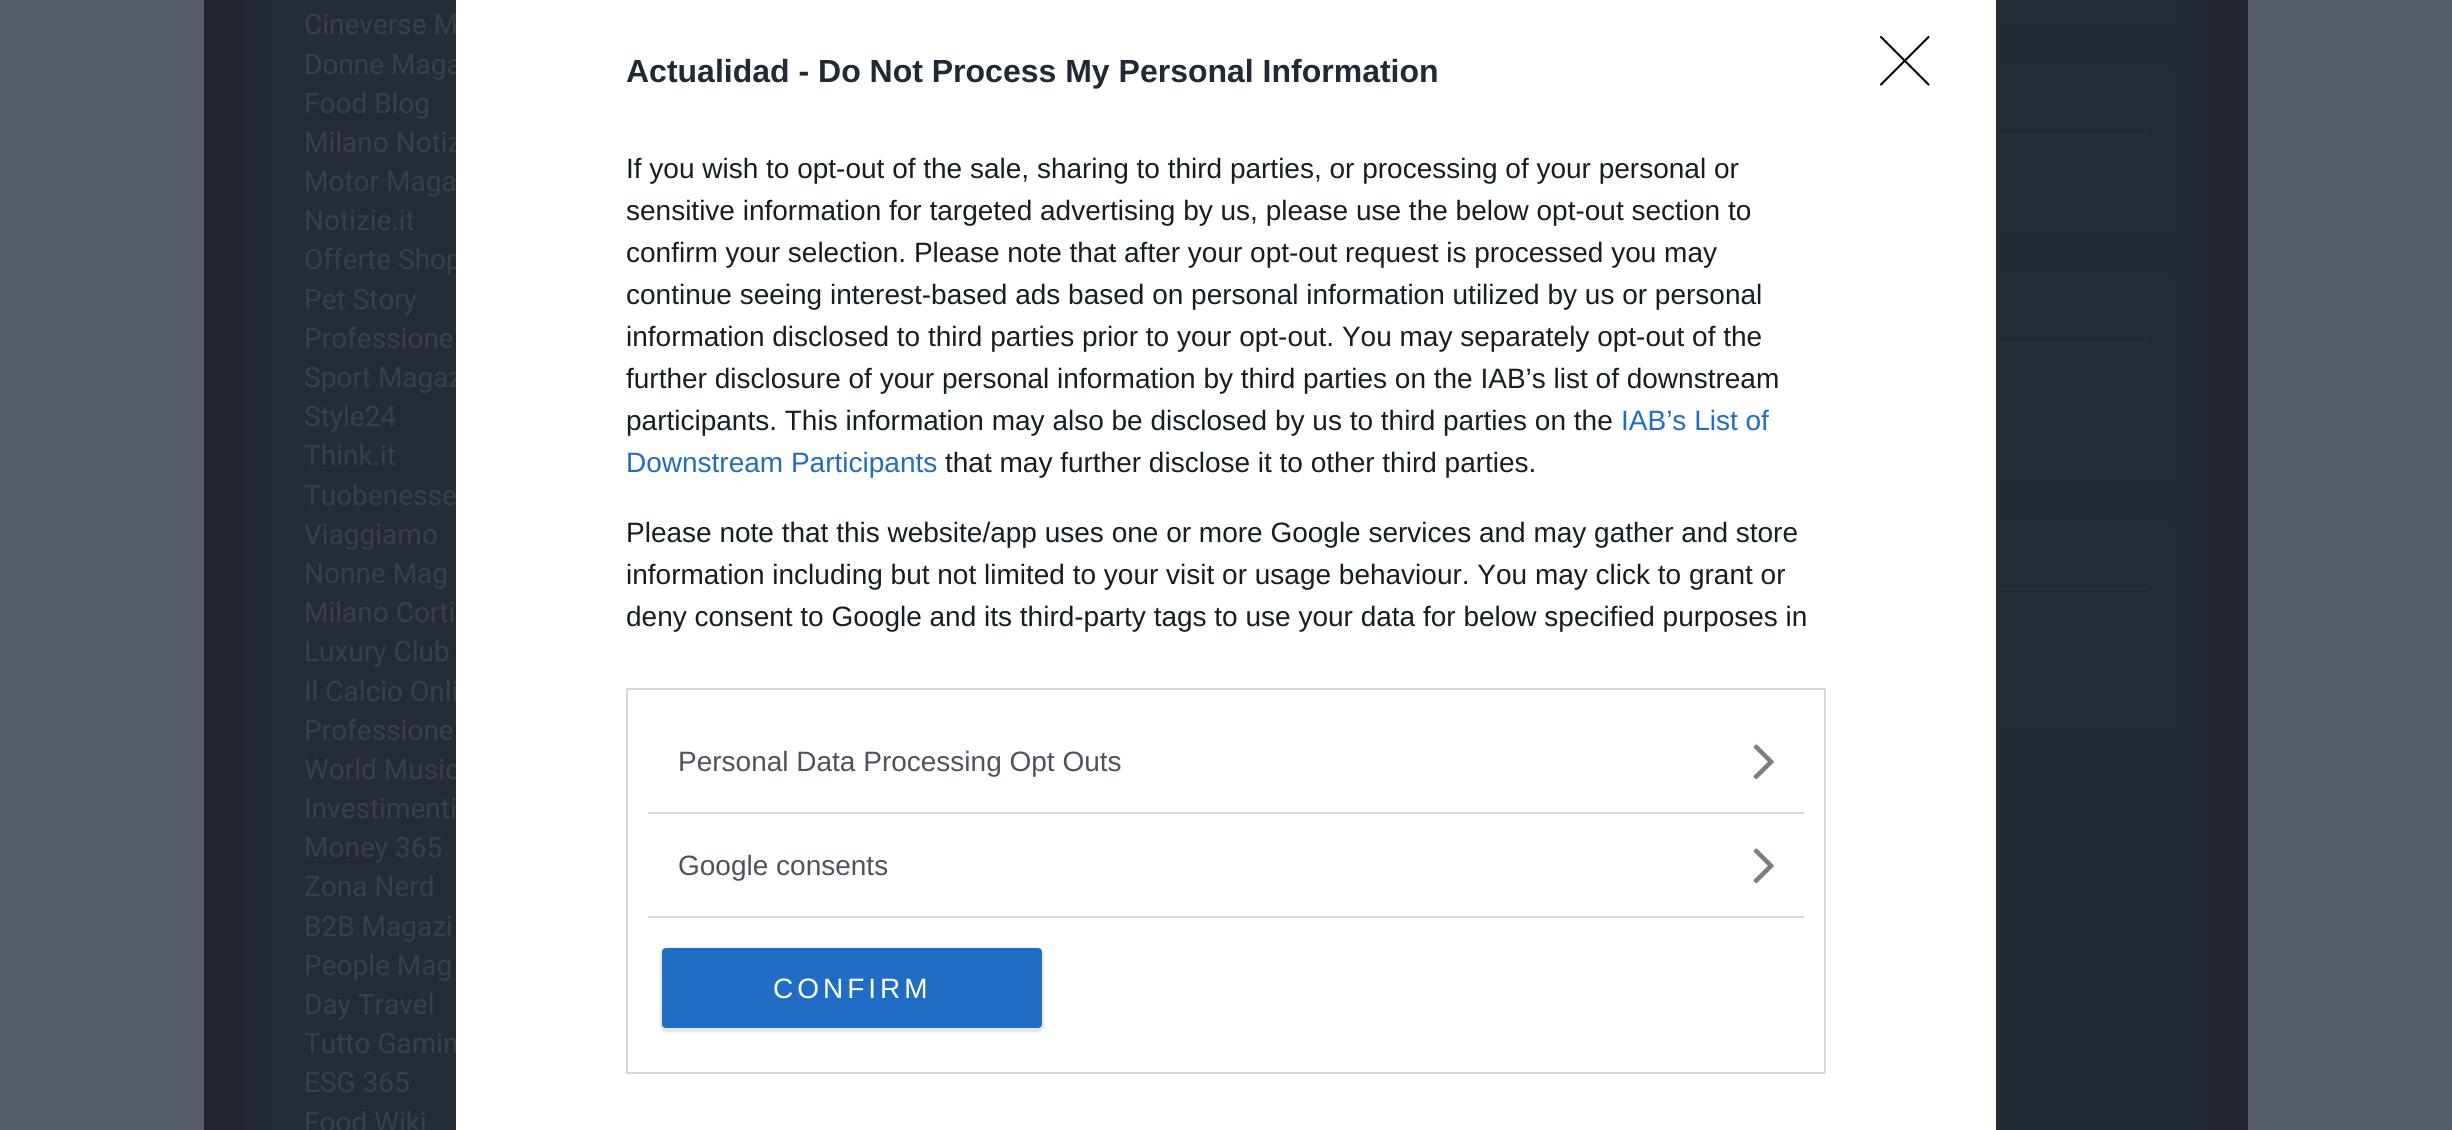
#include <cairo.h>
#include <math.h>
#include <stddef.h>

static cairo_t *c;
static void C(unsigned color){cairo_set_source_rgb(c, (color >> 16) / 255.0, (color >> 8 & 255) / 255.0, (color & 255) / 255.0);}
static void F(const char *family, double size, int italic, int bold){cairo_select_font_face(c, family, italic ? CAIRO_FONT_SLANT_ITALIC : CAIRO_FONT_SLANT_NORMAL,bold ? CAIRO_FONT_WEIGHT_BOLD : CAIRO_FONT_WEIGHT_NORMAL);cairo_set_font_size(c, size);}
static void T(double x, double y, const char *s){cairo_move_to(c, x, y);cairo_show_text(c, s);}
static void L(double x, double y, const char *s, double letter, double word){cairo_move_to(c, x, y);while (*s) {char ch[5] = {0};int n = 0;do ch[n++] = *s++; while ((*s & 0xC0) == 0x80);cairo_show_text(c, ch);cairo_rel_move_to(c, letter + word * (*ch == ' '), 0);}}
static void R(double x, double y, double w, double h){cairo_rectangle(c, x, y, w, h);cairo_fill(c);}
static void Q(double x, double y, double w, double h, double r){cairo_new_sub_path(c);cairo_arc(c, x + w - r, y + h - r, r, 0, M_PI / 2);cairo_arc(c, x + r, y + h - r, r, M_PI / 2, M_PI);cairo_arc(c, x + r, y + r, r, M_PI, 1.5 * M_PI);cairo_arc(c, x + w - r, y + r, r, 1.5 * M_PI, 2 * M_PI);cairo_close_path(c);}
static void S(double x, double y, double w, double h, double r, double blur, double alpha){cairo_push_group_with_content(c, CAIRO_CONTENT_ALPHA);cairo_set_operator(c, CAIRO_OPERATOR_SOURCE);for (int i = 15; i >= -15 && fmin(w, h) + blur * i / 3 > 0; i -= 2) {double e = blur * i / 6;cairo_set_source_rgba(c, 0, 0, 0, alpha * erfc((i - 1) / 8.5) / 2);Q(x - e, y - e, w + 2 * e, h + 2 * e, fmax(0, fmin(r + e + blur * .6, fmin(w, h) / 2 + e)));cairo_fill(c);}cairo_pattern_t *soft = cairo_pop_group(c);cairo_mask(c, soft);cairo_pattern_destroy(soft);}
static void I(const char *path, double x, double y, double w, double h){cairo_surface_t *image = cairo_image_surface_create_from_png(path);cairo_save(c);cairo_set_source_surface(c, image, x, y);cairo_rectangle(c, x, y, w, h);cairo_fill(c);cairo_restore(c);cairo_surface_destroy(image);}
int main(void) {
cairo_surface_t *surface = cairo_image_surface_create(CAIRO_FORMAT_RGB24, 2452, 1130);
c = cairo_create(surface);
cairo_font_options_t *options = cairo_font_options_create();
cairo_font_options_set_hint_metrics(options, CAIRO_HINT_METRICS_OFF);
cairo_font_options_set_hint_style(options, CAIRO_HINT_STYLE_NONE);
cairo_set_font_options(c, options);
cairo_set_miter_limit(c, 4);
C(0x575d66);
cairo_paint(c);
C(0x22272f);
R(204,0,2044,1130);
C(0x242a33);
R(244,0,30,1130);
C(0x252b34);
R(274,0,182,1130);
F("Roboto",28,0,0);
C(0x393f47);
T(304,34,"Cineverse M");
T(304,74,"Donne Maga");
T(304,113,"Food Blog");
T(304,152,"Milano Notiz");
T(304,191,"Motor Maga");
T(304,230,"Notizie.it");
T(304,269,"Offerte Shop");
T(304,309,"Pet Story");
T(304,348,"Professione");
T(304,387,"Sport Magaz");
T(304,426,"Style24");
T(304,465,"Think.it");
T(304,505,"Tuobenesse");
T(304,544,"Viaggiamo");
T(304,583,"Nonne Mag");
T(304,622,"Milano Corti");
T(304,661,"Luxury Club");
T(304,701,"Il Calcio Onli");
T(304,740,"Professione");
T(304,779,"World Music");
T(304,818,"Investimenti");
T(304,857,"Money 365");
T(304,896,"Zona Nerd");
T(304,936,"B2B Magazi");
T(304,975,"People Mag");
T(304,1014,"Day Travel");
T(304,1053,"Tutto Gamin");
T(304,1092,"ESG 365");
T(304,1132,"Food Wiki");
C(0x242a33);
R(1996,0,212,1130);
C(0x252b34);
Q(1636,-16,542,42,16);
cairo_fill(c);
Q(1636,66,542,168,16);
cairo_fill(c);
C(0x2b3139);
R(1996,134,152,2);
C(0x252b34);
Q(1636,274,542,208,16);
cairo_fill(c);
C(0x2b3139);
R(1996,342,152,2);
C(0x252b34);
Q(1636,522,542,206,16);
cairo_fill(c);
C(0x2b3139);
R(1996,588,152,2);
C(0xffffff);
R(456,0,1540,1130);
F("Liberation Sans",32,0,1);
C(0x212934);
T(626,82,"Actualidad - Do Not Process My Personal Information");
F("Liberation Sans",28,0,0);
C(0x141e23);
T(626,178,"If you wish to opt-out of the sale, sharing to third parties, or processing of your personal or");
T(626,220,"sensitive information for targeted advertising by us, please use the below opt-out section to");
T(626,262,"confirm your selection. Please note that after your opt-out request is processed you may");
T(626,304,"continue seeing interest-based ads based on personal information utilized by us or personal");
T(626,346,"information disclosed to third parties prior to your opt-out. You may separately opt-out of the");
T(626,388,"further disclosure of your personal information by third parties on the IAB’s list of downstream");
T(626,430,"participants. This information may also be disclosed by us to third parties on the");
C(0x206dc5);
T(1621,430,"IAB’s List of");
T(626,472,"Downstream Participants");
C(0x141e23);
T(945,472,"that may further disclose it to other third parties.");
T(626,542,"Please note that this website/app uses one or more Google services and may gather and store");
T(626,584,"information including but not limited to your visit or usage behaviour. You may click to grant or");
T(626,626,"deny consent to Google and its third-party tags to use your data for below specified purposes in");
cairo_rectangle(c,627,689,1198,384);
C(0xd8d8d8);
cairo_stroke(c);
R(648,812,1156,2);
C(0x4d545d);
T(678,771,"Personal Data Processing Opt Outs");
I("1.png",1753,744,21,36);
C(0xd8d8d8);
R(648,916,1156,2);
C(0x4d545d);
T(678,875,"Google consents");
I("1.png",1753,848,21,36);
C(0x000000);
S(660,948,384,84,6,1,.1);
C(0x206dc5);
Q(662,948,380,80,4);
cairo_fill(c);
C(0xffffff);
L(773,998,"CONFIRM",4,0);
cairo_new_path(c);
cairo_move_to(c,1881,37);
cairo_line_to(c,1928.5,84.5);
cairo_move_to(c,1928.5,37);
cairo_line_to(c,1881,84.5);
C(0x000000);
cairo_set_line_width(c,2.1);
cairo_set_line_cap(c,CAIRO_LINE_CAP_ROUND);
cairo_set_line_join(c,CAIRO_LINE_JOIN_ROUND);
cairo_stroke(c);
cairo_surface_write_to_png(surface, "o.png");
cairo_font_options_destroy(options);
cairo_destroy(c);
cairo_surface_destroy(surface);
return 0;
}
